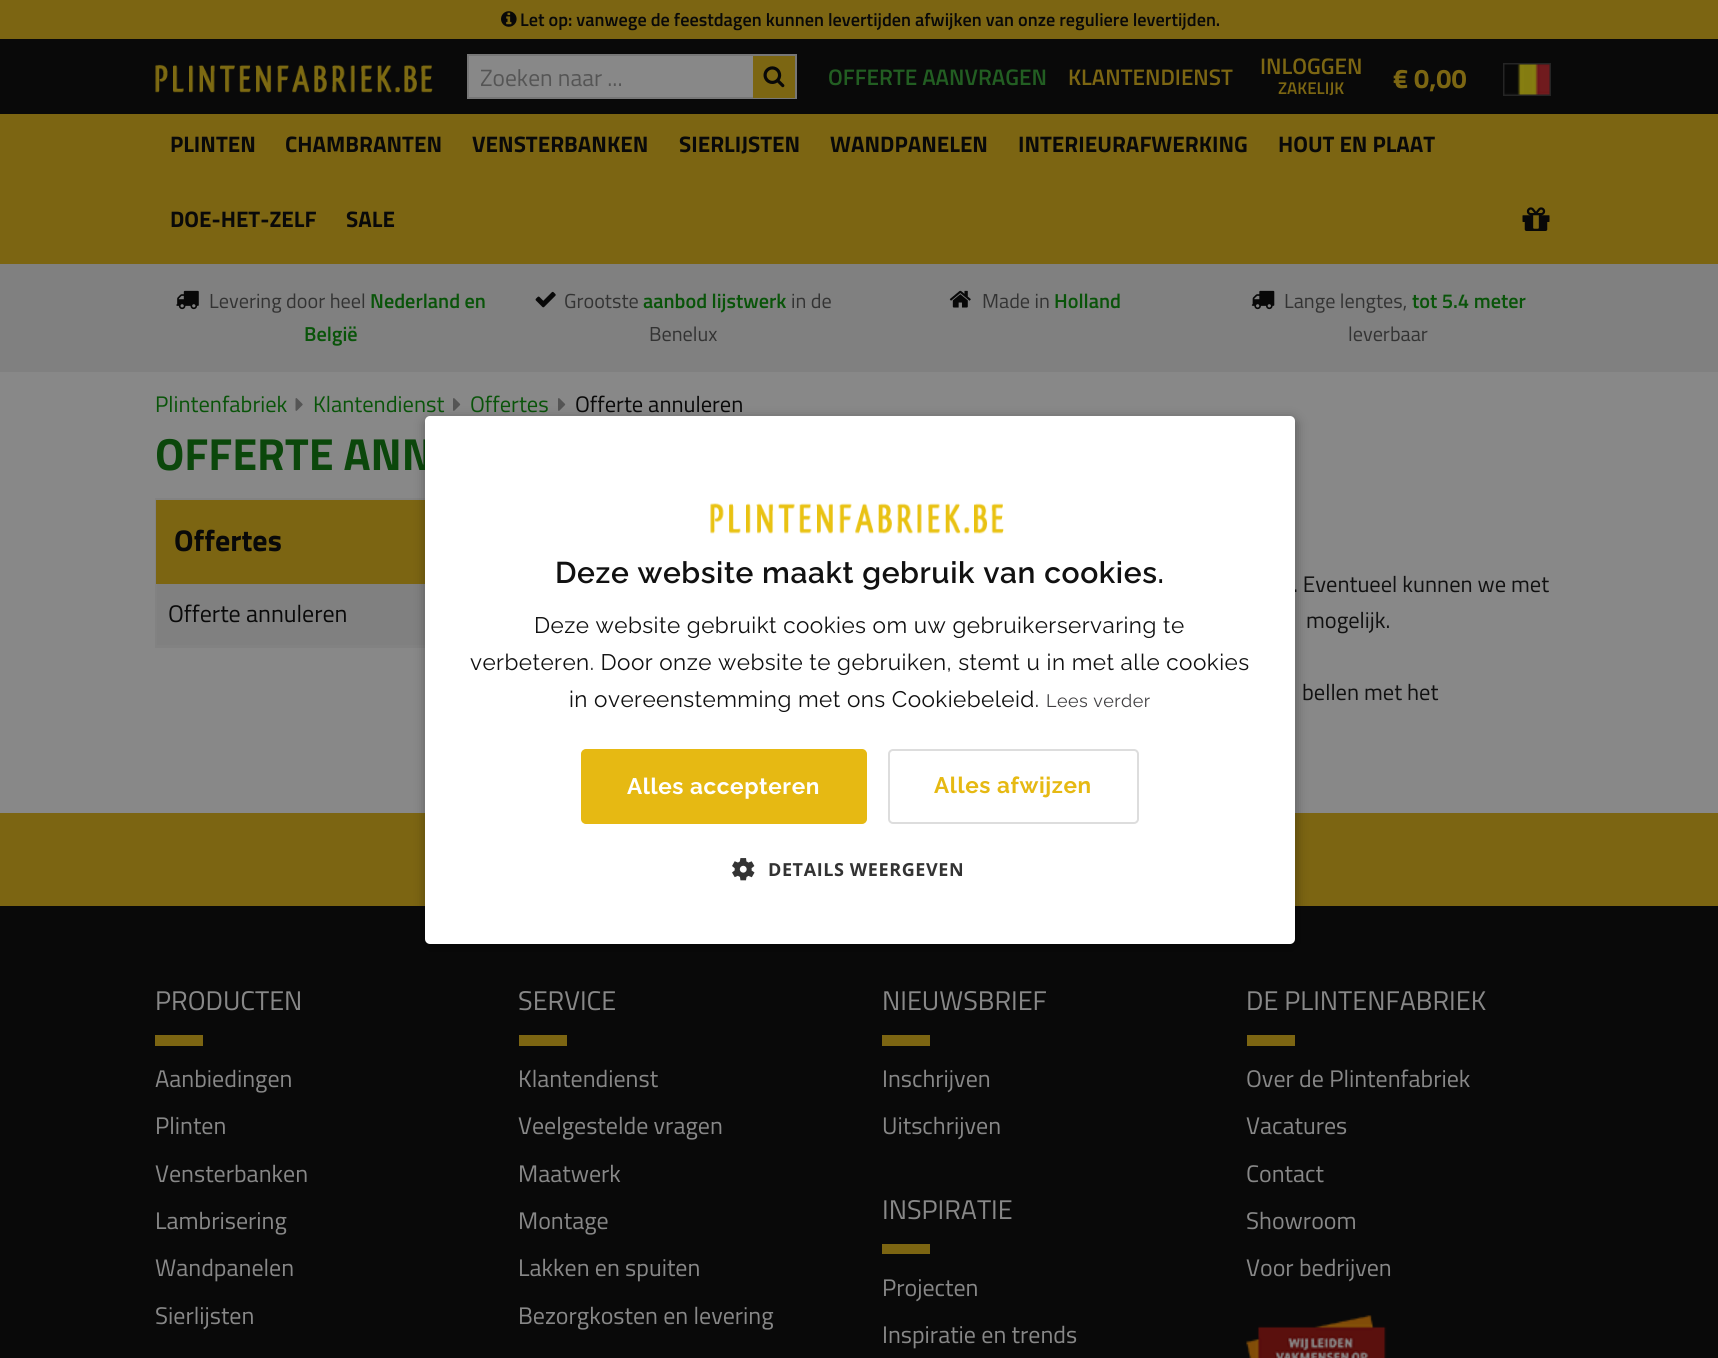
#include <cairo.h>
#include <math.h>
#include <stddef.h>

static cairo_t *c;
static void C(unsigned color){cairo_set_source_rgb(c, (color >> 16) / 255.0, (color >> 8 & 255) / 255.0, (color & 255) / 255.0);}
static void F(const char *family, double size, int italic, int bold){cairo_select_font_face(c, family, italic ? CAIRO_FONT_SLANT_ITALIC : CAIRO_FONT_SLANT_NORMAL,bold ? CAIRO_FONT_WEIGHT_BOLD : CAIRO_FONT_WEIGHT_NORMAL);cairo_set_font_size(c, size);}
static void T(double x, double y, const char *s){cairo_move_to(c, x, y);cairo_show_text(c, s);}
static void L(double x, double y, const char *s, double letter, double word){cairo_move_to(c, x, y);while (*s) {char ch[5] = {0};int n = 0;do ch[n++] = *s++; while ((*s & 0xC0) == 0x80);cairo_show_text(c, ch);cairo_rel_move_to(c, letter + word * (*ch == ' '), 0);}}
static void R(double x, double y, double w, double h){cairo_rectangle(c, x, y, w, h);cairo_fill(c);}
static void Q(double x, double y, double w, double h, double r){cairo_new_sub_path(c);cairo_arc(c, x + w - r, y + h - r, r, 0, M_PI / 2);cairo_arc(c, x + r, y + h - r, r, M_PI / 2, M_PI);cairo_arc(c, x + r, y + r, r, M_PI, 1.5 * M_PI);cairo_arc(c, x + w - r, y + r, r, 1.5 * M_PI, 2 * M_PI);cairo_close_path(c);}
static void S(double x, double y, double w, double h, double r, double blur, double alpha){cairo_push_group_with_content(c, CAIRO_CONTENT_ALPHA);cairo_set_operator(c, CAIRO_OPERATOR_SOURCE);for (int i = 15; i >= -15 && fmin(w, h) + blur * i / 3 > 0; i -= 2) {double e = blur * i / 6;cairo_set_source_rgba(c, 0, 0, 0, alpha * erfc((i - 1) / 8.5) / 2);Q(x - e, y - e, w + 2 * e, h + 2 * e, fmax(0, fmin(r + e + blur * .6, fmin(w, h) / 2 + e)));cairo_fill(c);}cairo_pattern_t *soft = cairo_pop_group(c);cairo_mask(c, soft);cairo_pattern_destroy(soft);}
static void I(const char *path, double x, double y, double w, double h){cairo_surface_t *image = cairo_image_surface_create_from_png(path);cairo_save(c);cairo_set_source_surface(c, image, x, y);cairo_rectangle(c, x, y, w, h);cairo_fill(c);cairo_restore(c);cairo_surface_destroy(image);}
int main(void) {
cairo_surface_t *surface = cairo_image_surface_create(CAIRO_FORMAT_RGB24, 1718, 1358);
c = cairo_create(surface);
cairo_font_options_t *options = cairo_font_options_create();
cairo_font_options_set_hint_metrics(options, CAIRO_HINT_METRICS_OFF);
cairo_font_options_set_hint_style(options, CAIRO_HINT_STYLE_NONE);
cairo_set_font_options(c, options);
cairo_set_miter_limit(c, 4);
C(0x888888);
cairo_paint(c);
C(0x7c6512);
R(0,0,1718,39);
I("1.png",501,11,16,16);
F("Titillium Web SemiBold",18.25,0,0);
C(0x090909);
T(520,26,"Let op: vanwege de feestdagen kunnen levertijden afwijken van onze reguliere levertijden.");
R(0,39,1718,75);
I("2.png",155,64,278,29);
C(0x888888);
R(469,56,284,41);
cairo_rectangle(c,468,55,328,43);
C(0x777777);
cairo_stroke(c);
F("Titillium Web",23.5,0,0);
C(0x555555);
T(480,86,"Zoeken naar ...");
C(0x7c6612);
R(753,56,42,42);
I("3.png",763,66,22,22);
F("Titillium Web SemiBold",22.5,0,0);
C(0x225e22);
T(828,85,"OFFERTE AANVRAGEN");
C(0x7c6612);
T(1068,85,"KLANTENDIENST");
T(1260,74,"INLOGGEN");
F("Titillium Web SemiBold",17,0,0);
T(1278,94,"ZAKELIJK");
F("Titillium Web",27,0,1);
T(1393,88,"€ 0,00");
cairo_rectangle(c,1504,64,46,31);
C(0x252525);
cairo_stroke(c);
I("4.png",1504,64,46,31);
C(0x7c6512);
R(0,114,1718,150);
F("Titillium Web",22.5,0,1);
C(0x090909);
T(170,152,"PLINTEN");
T(285,152,"CHAMBRANTEN");
T(472,152,"VENSTERBANKEN");
T(679,152,"SIERLIJSTEN");
T(830,152,"WANDPANELEN");
T(1018,152,"INTERIEURAFWERKING");
T(1278,152,"HOUT EN PLAAT");
T(170,227,"DOE-HET-ZELF");
T(346,227,"SALE");
I("5.png",1522,207,28,24);
C(0x808080);
R(0,264,1718,108);
I("6.png",176,290,23,20);
F("Titillium Web",20.25,0,0);
C(0x333333);
T(209,308,"Levering door heel");
F("Titillium Web SemiBold",20.25,0,0);
C(0x095409);
T(370,308,"Nederland en");
T(304,341,"België");
I("7.png",535,291,21,17);
F("Titillium Web",20.25,0,0);
C(0x333333);
T(564,308,"Grootste");
F("Titillium Web SemiBold",20.25,0,0);
C(0x095409);
T(643,308,"aanbod lijstwerk");
F("Titillium Web",20.25,0,0);
C(0x333333);
T(791,308,"in de");
T(649,341,"Benelux");
I("8.png",949,290,22,18);
T(982,308,"Made in");
F("Titillium Web SemiBold",20.25,0,0);
C(0x095409);
T(1054,308,"Holland");
I("9.png",1251,290,24,20);
F("Titillium Web",20.25,0,0);
C(0x333333);
T(1284,308,"Lange lengtes,");
F("Titillium Web SemiBold",20.25,0,0);
C(0x095409);
T(1412,308,"tot 5.4 meter");
F("Titillium Web",20.25,0,0);
C(0x333333);
T(1348,341,"leverbaar");
F("Titillium Web",22.5,0,0);
C(0x095409);
T(155,412,"Plintenfabriek");
I("10.png",295,398,8,13);
T(313,412,"Klantendienst");
I("11.png",453,398,8,13);
T(470,412,"Offertes");
I("11.png",558,398,8,13);
C(0x090909);
T(575,412,"Offerte annuleren");
F("Titillium Web",45,0,1);
C(0x0b470b);
T(155,470,"OFFERTE ANN");
cairo_rectangle(c,156,499,317,148);
C(0x828282);
cairo_stroke(c);
C(0x7c6512);
R(156,500,269,84);
F("Titillium Web",30,0,1);
C(0x090909);
T(174,551,"Offertes");
C(0x808080);
R(157,584,268,61);
C(0x828282);
R(156,645,269,1);
F("Titillium Web",24,0,0);
C(0x090909);
T(168,622,"Offerte annuleren");
F("Titillium Web",22.5,0,0);
C(0x111111);
T(1293,592,". Eventueel kunnen we met");
T(1306,628,"mogelijk.");
T(1302,700,"bellen met het");
C(0x7c6512);
R(0,813,1718,93);
C(0x090909);
R(0,906,1718,452);
F("Titillium Web",27,0,0);
C(0x888888);
T(155,1010,"PRODUCTEN");
C(0x7c6512);
R(155,1035,48,11);
F("Titillium Web",24,0,0);
C(0x888888);
T(155,1087,"Aanbiedingen");
T(155,1134,"Plinten");
T(155,1182,"Vensterbanken");
T(155,1229,"Lambrisering");
T(155,1276,"Wandpanelen");
T(155,1324,"Sierlijsten");
F("Titillium Web",27,0,0);
T(518,1010,"SERVICE");
C(0x7c6512);
R(519,1035,48,11);
F("Titillium Web",24,0,0);
C(0x888888);
T(518,1087,"Klantendienst");
T(518,1134,"Veelgestelde vragen");
T(518,1182,"Maatwerk");
T(518,1229,"Montage");
T(518,1276,"Lakken en spuiten");
T(518,1324,"Bezorgkosten en levering");
F("Titillium Web",27,0,0);
T(882,1010,"NIEUWSBRIEF");
C(0x7c6512);
R(882,1035,48,11);
F("Titillium Web",24,0,0);
C(0x888888);
T(882,1087,"Inschrijven");
T(882,1134,"Uitschrijven");
F("Titillium Web",27,0,0);
T(882,1219,"INSPIRATIE");
C(0x7c6512);
R(882,1244,48,10);
F("Titillium Web",24,0,0);
C(0x888888);
T(882,1296,"Projecten");
T(882,1343,"Inspiratie en trends");
F("Titillium Web",27,0,0);
T(1246,1010,"DE PLINTENFABRIEK");
C(0x7c6512);
R(1247,1035,48,11);
F("Titillium Web",24,0,0);
C(0x888888);
T(1246,1087,"Over de Plintenfabriek");
T(1246,1134,"Vacatures");
T(1246,1182,"Contact");
T(1246,1229,"Showroom");
T(1246,1276,"Voor bedrijven");
I("12.png",1246,1315,141,43);
C(0x000000);
S(426,419,870,528,5,6,.35);
C(0xffffff);
Q(425,416,870,528,5);
cairo_fill(c);
I("13.png",710,503,294,31);
F("Raleway SemiBold",30,0,0);
C(0x111111);
L(555,583,"Deze website maakt gebruik van cookies.",.6,0);
F("Raleway",22.5,0,0);
L(534,633,"Deze website gebruikt cookies om uw gebruikerservaring te",.45,0);
L(470,670,"verbeteren. Door onze website te gebruiken, stemt u in met alle cookies",.45,0);
L(569,707,"in overeenstemming met ons Cookiebeleid.",.45,0);
F("Raleway",18,0,0);
C(0x414042);
L(1046,707,"Lees verder",.45,0);
C(0xe6b913);
Q(582,750,284,73,4);
cairo_fill_preserve(c);
cairo_stroke(c);
F("Raleway",22.5,0,1);
C(0xffffff);
L(627,794,"Alles accepteren",.6,0);
Q(889,750,249,73,4);
C(0xdddddd);
cairo_stroke(c);
C(0xe6b913);
L(934,793,"Alles afwijzen",.6,0);
I("14.png",732,858,23,23);
F("Open Sans",18,0,1);
C(0x333333);
L(768,876,"DETAILS WEERGEVEN",.6,0);
cairo_surface_write_to_png(surface, "o.png");
cairo_font_options_destroy(options);
cairo_destroy(c);
cairo_surface_destroy(surface);
return 0;
}
